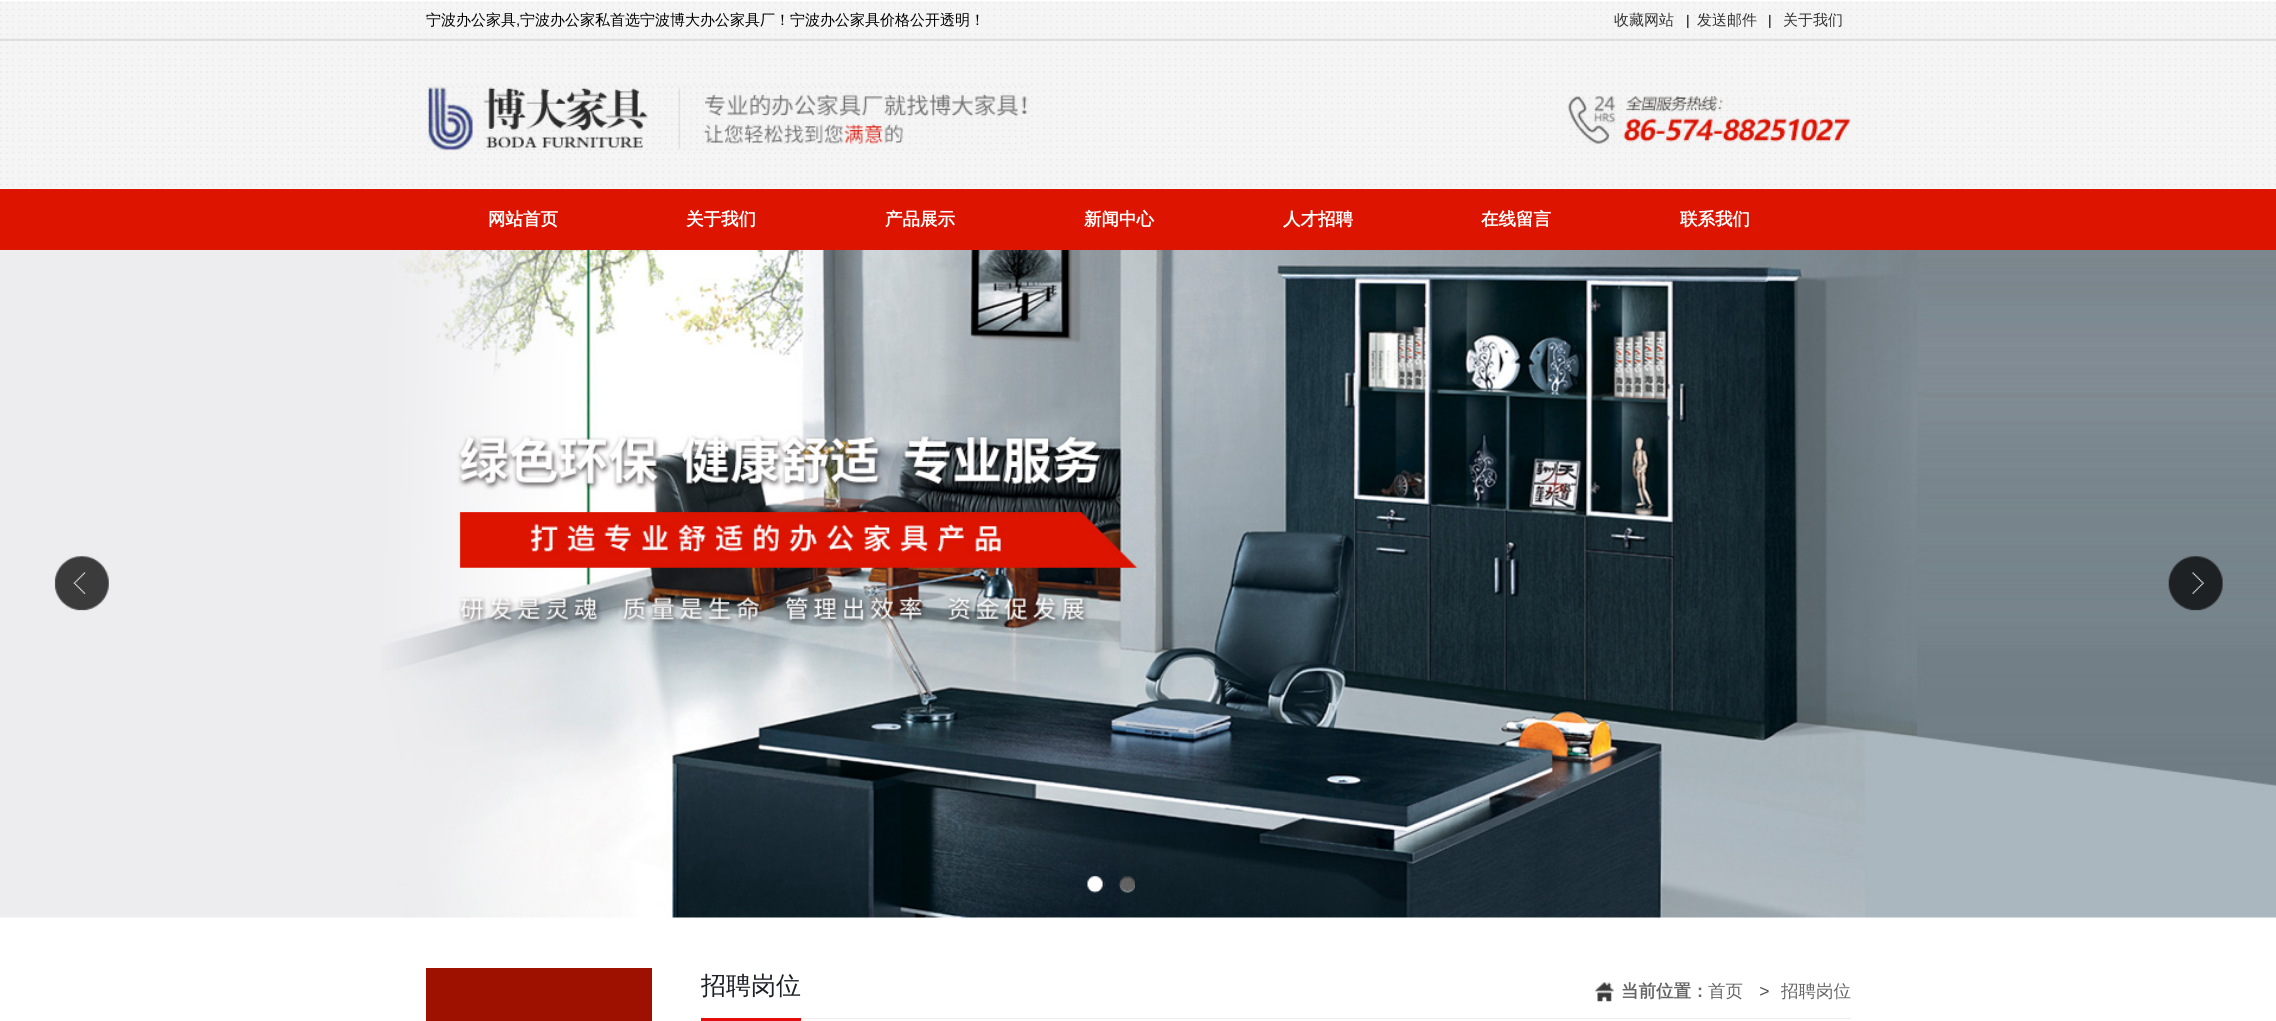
#include <cairo.h>
#include <math.h>
#include <stddef.h>

static cairo_t *c;
static void C(unsigned color){cairo_set_source_rgb(c, (color >> 16) / 255.0, (color >> 8 & 255) / 255.0, (color & 255) / 255.0);}
static void F(const char *family, double size, int italic, int bold){cairo_select_font_face(c, family, italic ? CAIRO_FONT_SLANT_ITALIC : CAIRO_FONT_SLANT_NORMAL,bold ? CAIRO_FONT_WEIGHT_BOLD : CAIRO_FONT_WEIGHT_NORMAL);cairo_set_font_size(c, size);}
static void T(double x, double y, const char *s){cairo_move_to(c, x, y);cairo_show_text(c, s);}
static void R(double x, double y, double w, double h){cairo_rectangle(c, x, y, w, h);cairo_fill(c);}
static void I(const char *path, double x, double y, double w, double h){cairo_surface_t *image = cairo_image_surface_create_from_png(path);cairo_save(c);cairo_set_source_surface(c, image, x, y);cairo_rectangle(c, x, y, w, h);cairo_fill(c);cairo_restore(c);cairo_surface_destroy(image);}
int main(void) {
cairo_surface_t *surface = cairo_image_surface_create(CAIRO_FORMAT_RGB24, 2276, 1021);
c = cairo_create(surface);
cairo_font_options_t *options = cairo_font_options_create();
cairo_font_options_set_hint_metrics(options, CAIRO_HINT_METRICS_OFF);
cairo_font_options_set_hint_style(options, CAIRO_HINT_STYLE_NONE);
cairo_set_font_options(c, options);
cairo_set_miter_limit(c, 4);
C(0xffffff);
cairo_paint(c);
I("1.png",0,1,2276,188);
C(0xdfdfdf);
R(0,40,2276,1);
F("WenQuanYi Zen Hei Medium",15,0,0);
C(0x000000);
T(426,25,"宁波办公家具");
F("Liberation Sans",15,0,0);
T(516,25,",");
F("WenQuanYi Zen Hei Medium",15,0,0);
T(520,25,"宁波办公家私首选宁波博大办公家具厂！宁波办公家具价格公开透明！");
C(0x333333);
T(1614,25,"收藏网站");
F("Liberation Sans",14,0,0);
C(0x000000);
T(1686,25,"|");
F("WenQuanYi Zen Hei Medium",15,0,0);
C(0x333333);
T(1697,25,"发送邮件");
F("Liberation Sans",14,0,0);
C(0x000000);
T(1768,25,"|");
F("WenQuanYi Zen Hei Medium",15,0,0);
C(0x333333);
T(1783,25,"关于我们");
I("2.png",426,85,603,66);
I("3.png",1567,95,284,50);
C(0xdc1400);
R(0,189,2276,61);
F("WenQuanYi Zen Hei",17.5,0,1);
C(0xffffff);
T(488,225,"网站首页");
T(686,225,"关于我们");
T(885,225,"产品展示");
T(1084,225,"新闻中心");
T(1283,225,"人才招聘");
T(1481,225,"在线留言");
T(1680,225,"联系我们");
I("4.png",0,250,2276,668);
I("5.png",54,556,55,55);
I("6.png",2168,556,55,55);
I("7.png",1087,876,18,17);
I("8.png",1118,876,17,17);
C(0x9e1100);
R(426,968,226,53);
C(0xededed);
R(801,1018,1050,1);
C(0xe60b0b);
R(701,1018,100,3);
F("WenQuanYi Zen Hei Medium",25,0,0);
C(0x1b1f26);
T(701,994,"招聘岗位");
I("9.png",1595,982,19,20);
F("WenQuanYi Zen Hei",17.5,0,1);
C(0x666666);
T(1621,997,"当前位置：");
F("WenQuanYi Zen Hei Medium",17.5,0,0);
T(1708,997,"首页");
F("Liberation Sans",17.5,1,0);
C(0x4d4d4d);
T(1759,997,">");
F("WenQuanYi Zen Hei Medium",17.5,0,0);
C(0x666666);
T(1781,997,"招聘岗位");
cairo_surface_write_to_png(surface, "o.png");
cairo_font_options_destroy(options);
cairo_destroy(c);
cairo_surface_destroy(surface);
return 0;
}
